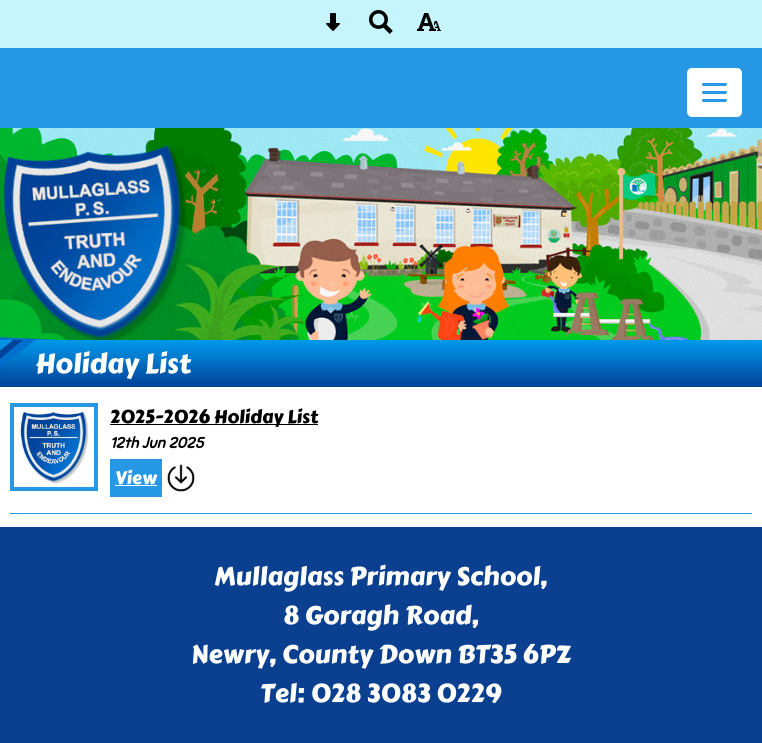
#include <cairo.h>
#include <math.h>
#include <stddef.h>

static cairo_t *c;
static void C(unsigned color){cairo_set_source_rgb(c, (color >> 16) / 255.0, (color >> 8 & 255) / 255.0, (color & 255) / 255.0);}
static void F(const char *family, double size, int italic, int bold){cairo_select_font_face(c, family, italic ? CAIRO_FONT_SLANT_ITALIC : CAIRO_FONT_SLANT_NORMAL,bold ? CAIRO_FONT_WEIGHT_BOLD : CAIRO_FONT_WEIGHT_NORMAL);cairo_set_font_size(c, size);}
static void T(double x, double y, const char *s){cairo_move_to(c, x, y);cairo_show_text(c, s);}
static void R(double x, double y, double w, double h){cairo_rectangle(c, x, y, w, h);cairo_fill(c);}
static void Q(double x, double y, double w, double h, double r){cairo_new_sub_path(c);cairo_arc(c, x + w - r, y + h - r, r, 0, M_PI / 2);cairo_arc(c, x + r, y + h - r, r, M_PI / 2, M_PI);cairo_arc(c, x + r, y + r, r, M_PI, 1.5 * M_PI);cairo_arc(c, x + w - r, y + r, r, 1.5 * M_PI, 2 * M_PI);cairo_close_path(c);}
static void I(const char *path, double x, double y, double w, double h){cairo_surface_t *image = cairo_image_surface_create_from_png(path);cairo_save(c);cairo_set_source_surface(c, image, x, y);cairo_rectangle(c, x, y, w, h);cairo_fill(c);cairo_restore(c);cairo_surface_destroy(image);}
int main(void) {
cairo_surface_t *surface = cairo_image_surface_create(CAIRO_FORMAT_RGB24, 762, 743);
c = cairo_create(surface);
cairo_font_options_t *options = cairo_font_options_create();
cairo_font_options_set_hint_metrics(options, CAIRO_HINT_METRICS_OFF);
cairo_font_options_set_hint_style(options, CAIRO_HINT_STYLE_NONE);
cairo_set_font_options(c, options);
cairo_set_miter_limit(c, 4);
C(0x2798e6);
cairo_paint(c);
C(0xc7f5fd);
R(0,0,762,48);
I("1.png",326,13,14,18);
I("2.png",369,10,24,24);
I("3.png",417,13,24,18);
C(0xffffff);
Q(687,68,55,49,5);
cairo_fill(c);
C(0x2798e6);
Q(702,83,25,3,1.5);
cairo_fill(c);
Q(702,91,25,3,1.5);
cairo_fill(c);
Q(702,99,25,3,1.5);
cairo_fill(c);
I("4.png",0,128,762,212);
C(0xffffff);
R(0,387,762,140);
C(0x00459d);
R(0,382,762,5);
I("5.png",0,340,762,42);
F("Carter One",27.5,0,0);
C(0xffffff);
T(35,373,"Holiday List");
C(0x2798e6);
R(10,513,742,1);
cairo_rectangle(c,12,405,84,84);
cairo_set_line_width(c,4);
cairo_stroke(c);
I("6.png",20,411,69,73);
C(0x000000);
R(110,424,208,1);
F("Carter One",18.4,0,0);
T(110,423,"2025-2026 Holiday List");
F("Sniglet",15.25,1,1);
T(110,448,"12th Jun 2025");
C(0x2798e6);
R(110,459,52,38);
F("Carter One",18,0,0);
C(0xffffff);
T(115,484,"View");
R(115,485,42,1);
I("7.png",167,464,28,28);
C(0x0b4090);
R(0,527,762,216);
F("Carter One",25.6,0,0);
C(0xffffff);
T(214,585,"Mullaglass Primary School,");
T(283,624,"8 Goragh Road,");
T(191,663,"Newry, County Down BT35 6PZ");
T(260,702,"Tel: 028 3083 0229");
cairo_surface_write_to_png(surface, "o.png");
cairo_font_options_destroy(options);
cairo_destroy(c);
cairo_surface_destroy(surface);
return 0;
}
